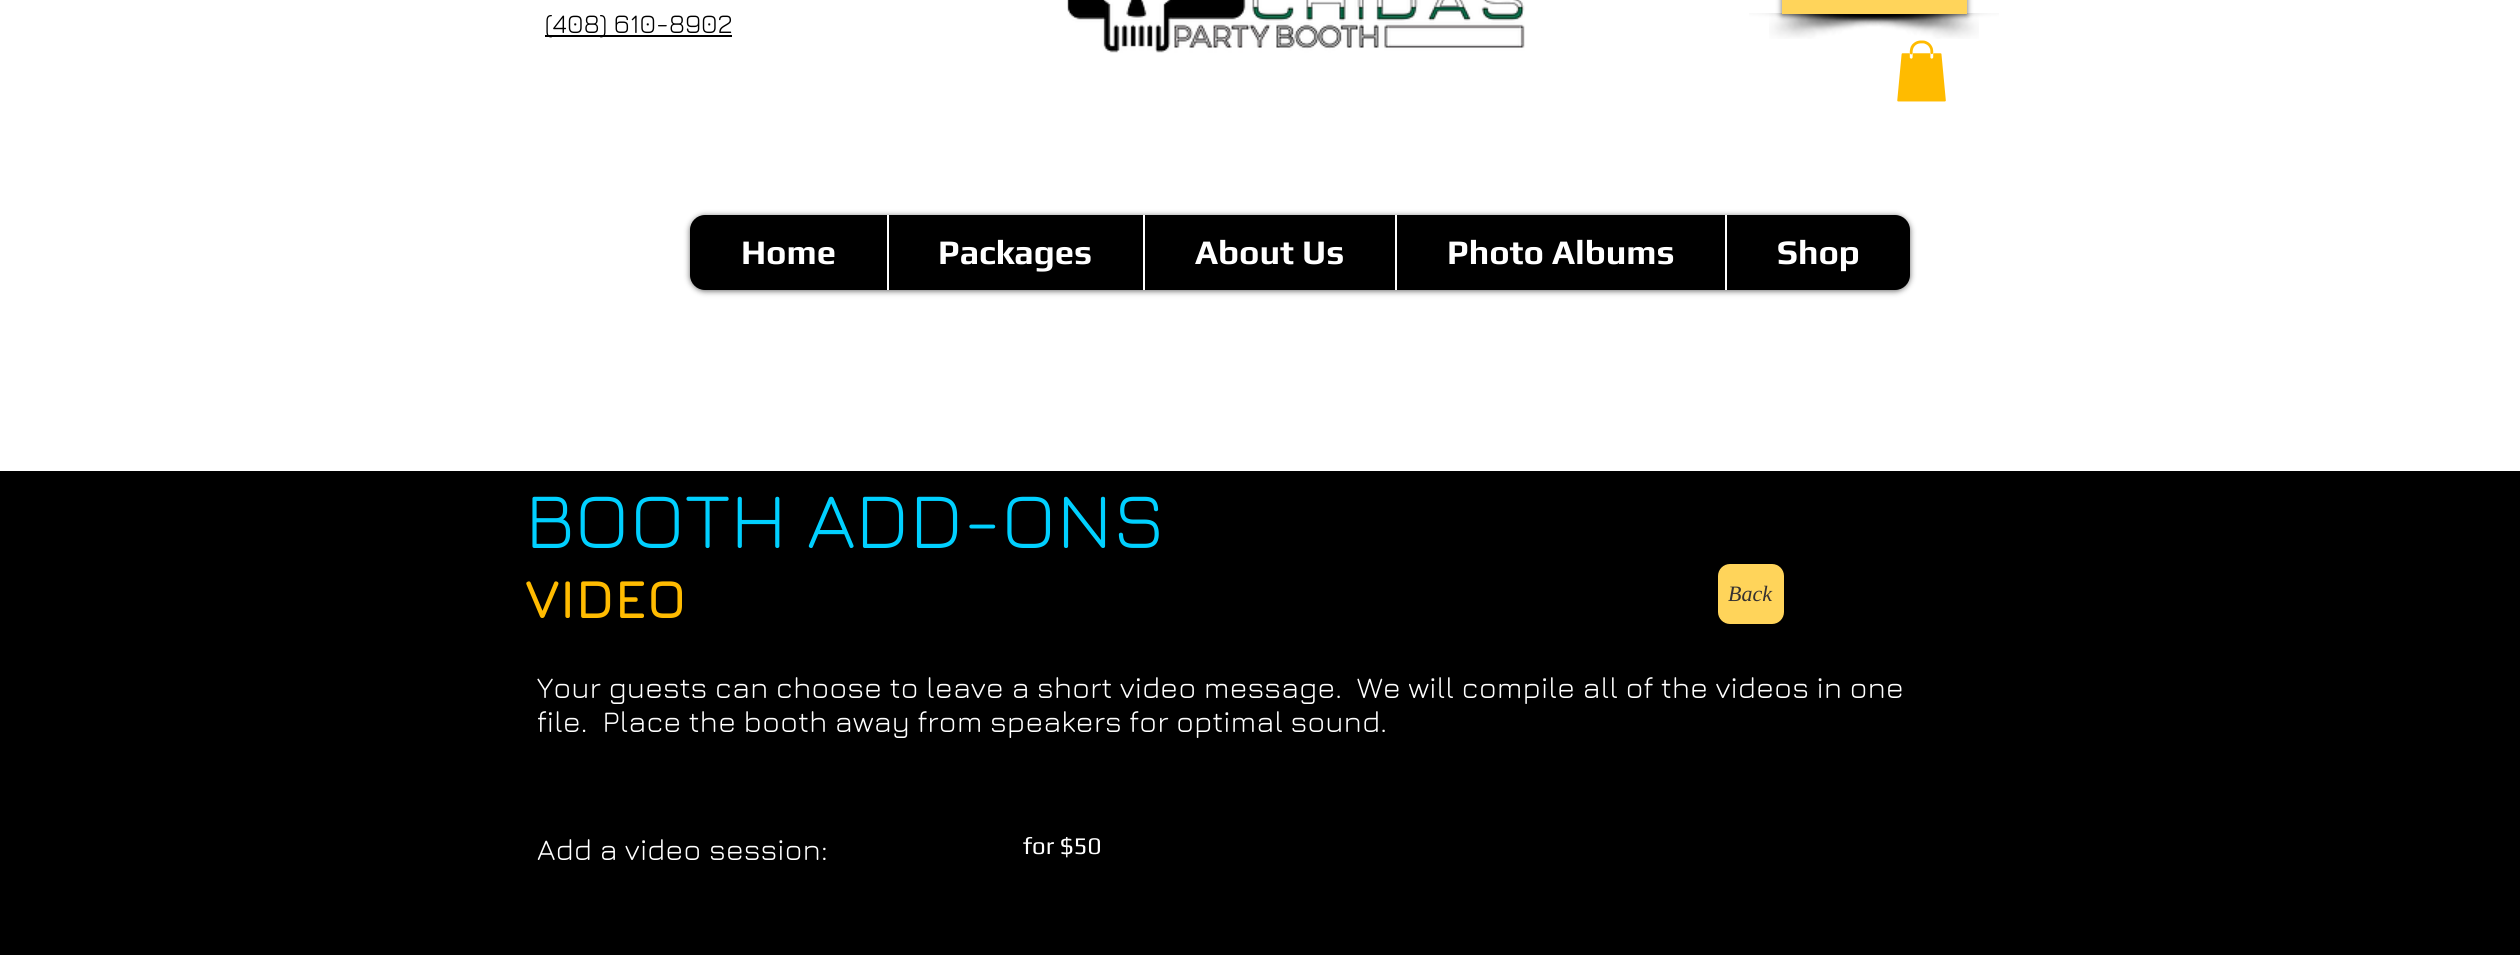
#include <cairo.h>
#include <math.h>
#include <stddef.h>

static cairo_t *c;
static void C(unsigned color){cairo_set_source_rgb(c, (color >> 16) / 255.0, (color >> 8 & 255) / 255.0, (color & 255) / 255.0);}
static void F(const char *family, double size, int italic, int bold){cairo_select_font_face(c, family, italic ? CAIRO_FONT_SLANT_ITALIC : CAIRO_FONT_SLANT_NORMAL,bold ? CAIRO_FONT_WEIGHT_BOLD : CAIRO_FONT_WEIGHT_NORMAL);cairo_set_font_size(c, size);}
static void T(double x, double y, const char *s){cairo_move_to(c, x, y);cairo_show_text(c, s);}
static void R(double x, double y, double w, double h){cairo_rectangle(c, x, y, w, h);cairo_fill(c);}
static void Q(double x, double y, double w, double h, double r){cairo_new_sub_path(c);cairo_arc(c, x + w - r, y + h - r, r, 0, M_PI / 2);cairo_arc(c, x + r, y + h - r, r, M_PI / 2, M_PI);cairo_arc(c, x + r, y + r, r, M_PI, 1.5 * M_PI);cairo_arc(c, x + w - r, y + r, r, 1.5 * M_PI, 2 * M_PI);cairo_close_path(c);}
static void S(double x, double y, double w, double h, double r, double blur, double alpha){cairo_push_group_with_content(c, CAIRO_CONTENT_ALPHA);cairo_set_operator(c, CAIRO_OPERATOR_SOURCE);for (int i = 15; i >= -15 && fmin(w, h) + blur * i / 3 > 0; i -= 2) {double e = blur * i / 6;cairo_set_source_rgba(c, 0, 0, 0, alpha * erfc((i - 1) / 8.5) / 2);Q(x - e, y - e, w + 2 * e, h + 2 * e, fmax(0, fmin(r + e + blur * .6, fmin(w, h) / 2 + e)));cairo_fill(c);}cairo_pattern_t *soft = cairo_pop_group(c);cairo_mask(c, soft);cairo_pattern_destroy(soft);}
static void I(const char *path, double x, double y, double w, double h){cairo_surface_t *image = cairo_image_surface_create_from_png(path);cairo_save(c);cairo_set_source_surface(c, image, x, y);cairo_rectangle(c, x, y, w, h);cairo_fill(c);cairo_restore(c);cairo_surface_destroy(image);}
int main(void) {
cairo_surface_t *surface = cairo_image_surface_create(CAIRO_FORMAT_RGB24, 2520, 955);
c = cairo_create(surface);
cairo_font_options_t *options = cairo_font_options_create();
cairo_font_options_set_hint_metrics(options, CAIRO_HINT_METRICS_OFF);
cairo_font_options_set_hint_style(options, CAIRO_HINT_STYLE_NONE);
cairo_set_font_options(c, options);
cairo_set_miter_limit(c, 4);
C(0x000000);
cairo_paint(c);
C(0xffffff);
R(0,0,2520,471);
C(0x000000);
R(545,35,187,2);
F("Jura",27,0,0);
T(545,33,"(408) 610-8902");
I("1.png",1067,0,458,53);
I("3.png",1769,13,230,26);
I("2.png",1749,13,230,26);
C(0x000000);
S(1782,-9,185,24,0,3,.6);
C(0xffd45a);
R(1782,0,185,14);
I("4.png",1897,40,49,62);
C(0x000000);
S(690,216,1220,75,15,3,.6);
C(0x000000);
Q(690,215,1220,75,15);
cairo_fill(c);
F("Play",34.5,0,1);
C(0xffffff);
T(741,264,"Home");
R(887,215,2,75);
T(938,264,"Packages");
R(1143,215,2,75);
T(1195,264,"About Us");
R(1395,215,2,75);
T(1447,264,"Photo Albums");
R(1725,215,2,75);
T(1777,264,"Shop");
F("Jura",79.5,0,0);
C(0x00d0ff);
T(525,548,"BOOTH ADD-ONS");
F("Jura",54,0,1);
C(0xffbb00);
T(525,618,"VIDEO");
C(0xffd45a);
Q(1718,564,66,60,12);
cairo_fill(c);
F("Liberation Serif",22,1,0);
C(0x353131);
T(1728,601,"Back");
F("Jura",30,0,0);
C(0xffffff);
T(537,698,"Your guests can choose to leave a short video message.  We will compile all of the videos in one");
T(537,732,"file.  Place the booth away from speakers for optimal sound.");
T(537,860,"Add a video session:");
F("Play",24,0,0);
T(1023,854,"for $50");
cairo_surface_write_to_png(surface, "o.png");
cairo_font_options_destroy(options);
cairo_destroy(c);
cairo_surface_destroy(surface);
return 0;
}
